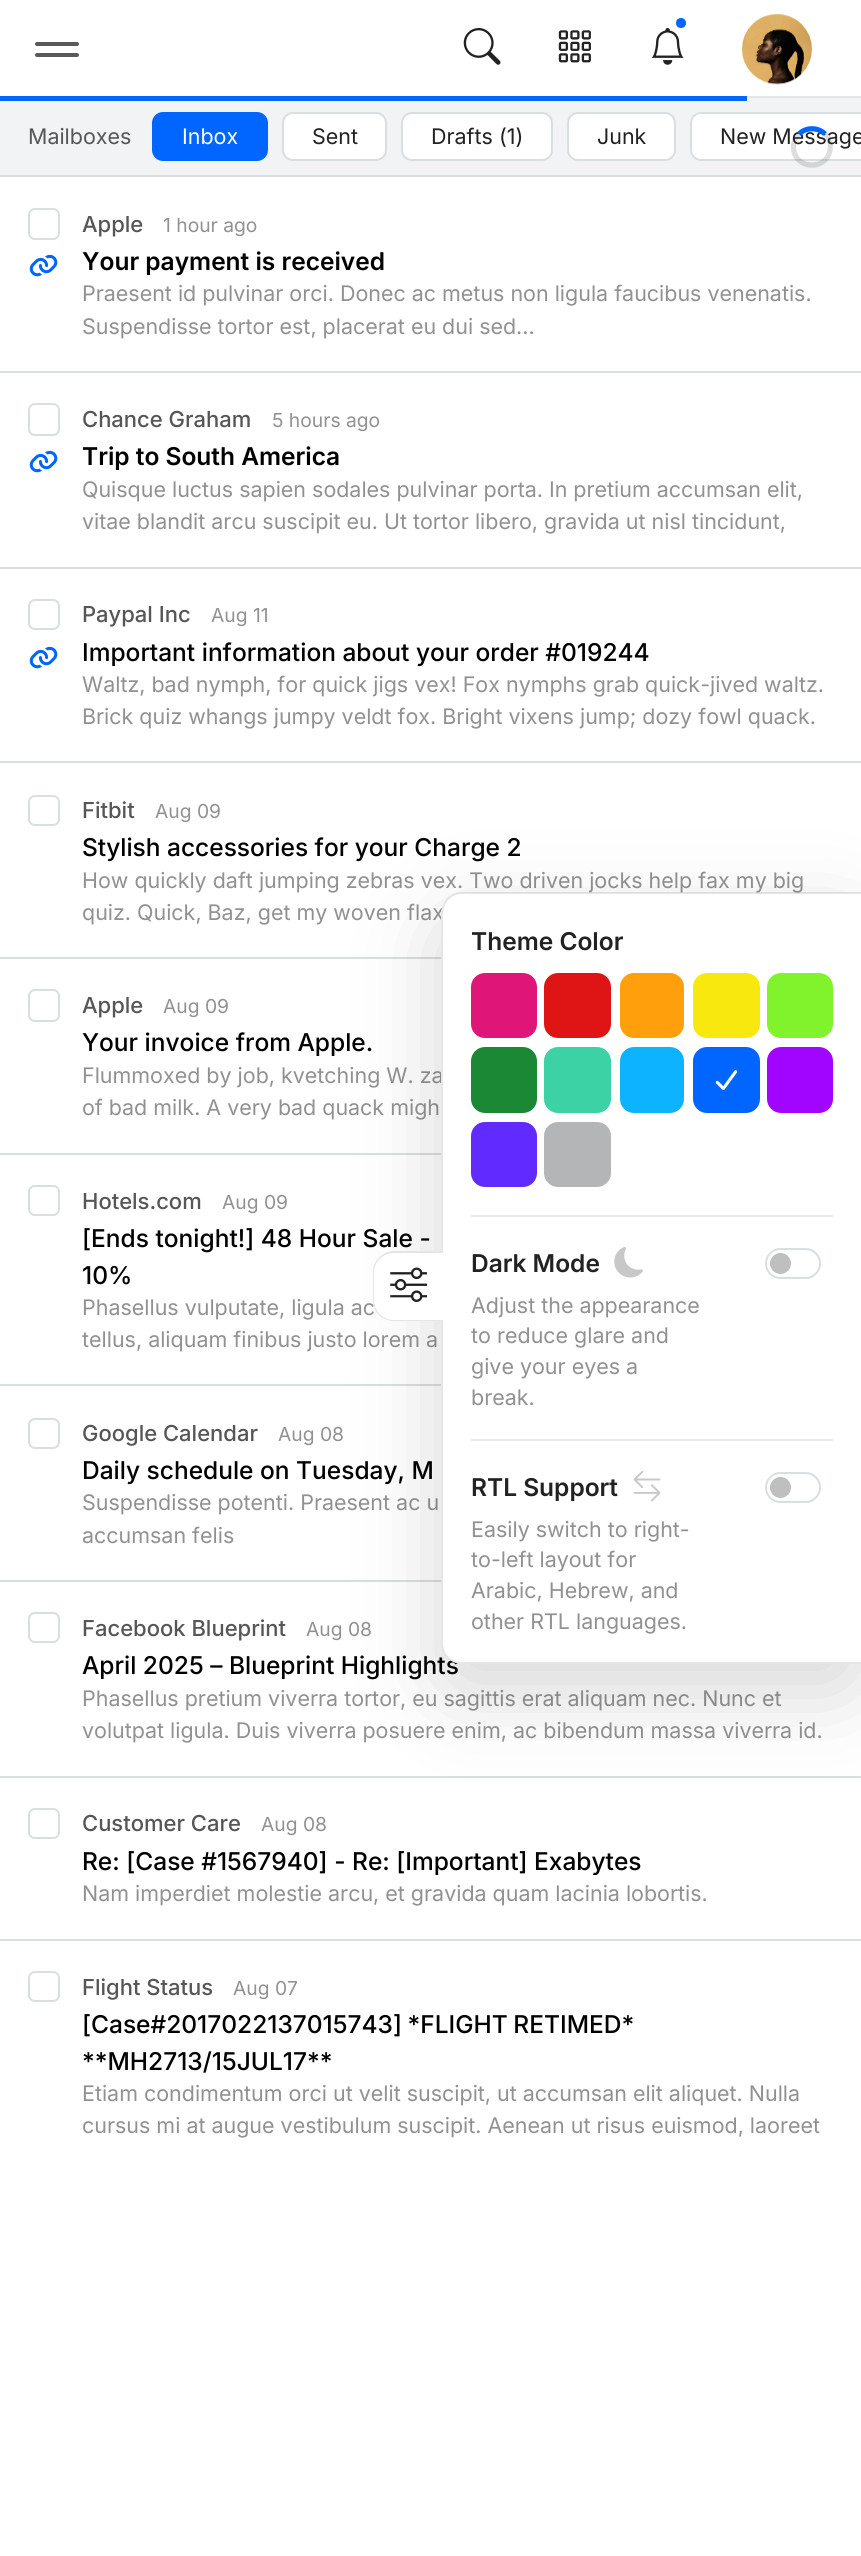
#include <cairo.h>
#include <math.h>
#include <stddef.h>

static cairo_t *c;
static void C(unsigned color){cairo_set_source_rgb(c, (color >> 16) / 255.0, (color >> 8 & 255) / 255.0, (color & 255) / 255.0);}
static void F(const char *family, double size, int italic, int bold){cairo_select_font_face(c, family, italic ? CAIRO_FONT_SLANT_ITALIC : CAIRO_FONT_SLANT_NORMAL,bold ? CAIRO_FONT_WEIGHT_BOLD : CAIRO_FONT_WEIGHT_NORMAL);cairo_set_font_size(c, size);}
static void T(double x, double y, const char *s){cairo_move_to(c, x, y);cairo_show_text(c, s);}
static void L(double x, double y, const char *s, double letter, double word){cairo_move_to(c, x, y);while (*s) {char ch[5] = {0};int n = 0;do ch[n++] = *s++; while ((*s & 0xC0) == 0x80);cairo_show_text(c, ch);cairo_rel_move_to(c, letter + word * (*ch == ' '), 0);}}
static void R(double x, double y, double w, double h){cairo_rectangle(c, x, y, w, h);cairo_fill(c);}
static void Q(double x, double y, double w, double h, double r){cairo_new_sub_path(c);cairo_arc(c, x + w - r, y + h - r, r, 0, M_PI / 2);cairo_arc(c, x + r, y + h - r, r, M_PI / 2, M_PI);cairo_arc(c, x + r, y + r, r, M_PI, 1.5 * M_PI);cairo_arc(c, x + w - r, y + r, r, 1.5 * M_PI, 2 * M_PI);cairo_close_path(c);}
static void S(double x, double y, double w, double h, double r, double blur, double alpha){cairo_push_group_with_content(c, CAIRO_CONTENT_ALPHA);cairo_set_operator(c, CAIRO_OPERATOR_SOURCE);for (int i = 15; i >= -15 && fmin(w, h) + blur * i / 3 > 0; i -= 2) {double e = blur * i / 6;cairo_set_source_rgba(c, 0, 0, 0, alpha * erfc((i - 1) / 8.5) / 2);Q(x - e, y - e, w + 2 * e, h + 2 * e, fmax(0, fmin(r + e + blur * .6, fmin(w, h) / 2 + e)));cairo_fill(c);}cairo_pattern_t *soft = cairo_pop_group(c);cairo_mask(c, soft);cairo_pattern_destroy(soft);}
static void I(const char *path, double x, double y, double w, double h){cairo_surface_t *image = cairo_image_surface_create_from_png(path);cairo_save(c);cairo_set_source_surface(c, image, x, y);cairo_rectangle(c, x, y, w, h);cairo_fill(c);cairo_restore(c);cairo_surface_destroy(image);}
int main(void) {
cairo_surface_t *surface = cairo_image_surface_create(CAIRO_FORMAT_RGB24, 861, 2556);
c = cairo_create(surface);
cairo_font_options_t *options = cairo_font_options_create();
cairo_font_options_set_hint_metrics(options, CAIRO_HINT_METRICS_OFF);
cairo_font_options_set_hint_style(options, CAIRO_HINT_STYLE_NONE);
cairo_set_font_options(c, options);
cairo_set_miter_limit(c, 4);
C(0xf1f3f4);
cairo_paint(c);
C(0x0066ff);
R(0,96,747,5);
C(0xffffff);
cairo_new_path(c);
cairo_move_to(c,701,112);
cairo_line_to(c,861,112);
cairo_line_to(c,861,161);
cairo_line_to(c,701,161);
cairo_curve_to(c,695,161,690,156,690,150);
cairo_line_to(c,690,123);
cairo_curve_to(c,690,117,695,112,701,112);
cairo_close_path(c);
cairo_fill(c);
Q(691,113,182,47,10);
C(0xd9dee1);
cairo_stroke(c);
F("Inter",21.45,0,0);
C(0x222222);
T(720,144,"New Message");
cairo_new_path(c);
cairo_move_to(c,799,134);
cairo_curve_to(c,806,127,818,127,825,134);
C(0x0066ff);
cairo_set_line_width(c,5.2);
cairo_stroke(c);
cairo_new_path(c);
cairo_move_to(c,825,134);
cairo_curve_to(c,829.5,138.5,831,144.5,830,150.5);
cairo_curve_to(c,825.5,172,793.5,169,793.5,147);
cairo_curve_to(c,793.5,142,795.5,137.5,799,134);
cairo_set_source_rgba(c,0.133,0.133,0.133,0.15);
cairo_stroke(c);
C(0xffffff);
R(0,0,861,96);
C(0xe6e6e6);
R(747,96,114,2);
C(0x595959);
Q(35,42,44,4,2);
cairo_fill(c);
Q(35,53,44,4,2);
cairo_fill(c);
I("1.png",463,28,38,37);
I("2.png",558,30,33,33);
C(0x0066ff);
cairo_arc(c,681,23,5,0,2 * M_PI);
cairo_fill(c);
I("3.png",651,28,33,37);
I("4.png",742,13,70,72);
C(0x565657);
T(28,144,"Mailboxes");
C(0x0066ff);
Q(153,113,114,47,10);
cairo_fill_preserve(c);
cairo_set_line_width(c,2);
cairo_stroke(c);
C(0xffffff);
T(182,144,"Inbox");
Q(283,113,103,47,10);
cairo_fill_preserve(c);
C(0xd9dee1);
cairo_stroke(c);
C(0x222222);
T(312,144,"Sent");
C(0xffffff);
Q(402,113,150,47,10);
cairo_fill_preserve(c);
C(0xd9dee1);
cairo_stroke(c);
C(0x222222);
T(431,144,"Drafts (1)");
C(0xffffff);
Q(568,113,107,47,10);
cairo_fill_preserve(c);
C(0xd9dee1);
cairo_stroke(c);
C(0x222222);
T(597,144,"Junk");
C(0xffffff);
R(0,177,861,2379);
C(0xd9dee1);
R(0,175,861,2);
Q(29,209,30,30,6);
cairo_stroke(c);
I("5.png",29,254,29,23);
F("Inter Medium",22,0,0);
C(0x565657);
T(82,232,"Apple");
F("Inter",19.25,0,0);
C(0x919191);
T(163,232,"1 hour ago");
F("Inter SemiBold",24.5,0,0);
C(0x000000);
T(82,270,"Your payment is received");
F("Inter",21.45,0,0);
C(0x919191);
T(82,301,"Praesent id pulvinar orci. Donec ac metus non ligula faucibus venenatis.");
T(82,334,"Suspendisse tortor est, placerat eu dui sed...");
C(0xd9dee1);
R(0,371,861,2);
Q(29,404,30,31,6);
cairo_stroke(c);
I("5.png",29,450,29,23);
F("Inter Medium",22,0,0);
C(0x565657);
T(82,427,"Chance Graham");
F("Inter",19.25,0,0);
C(0x919191);
T(272,427,"5 hours ago");
F("Inter SemiBold",24.5,0,0);
C(0x000000);
T(82,465,"Trip to South America");
F("Inter",21.45,0,0);
C(0x919191);
T(82,497,"Quisque luctus sapien sodales pulvinar porta. In pretium accumsan elit,");
T(82,529,"vitae blandit arcu suscipit eu. Ut tortor libero, gravida ut nisl tincidunt,");
C(0xd9dee1);
R(0,567,861,2);
Q(29,600,30,29,6);
cairo_stroke(c);
I("5.png",29,646,29,23);
F("Inter Medium",22,0,0);
C(0x565657);
T(82,622,"Paypal Inc");
F("Inter",19.25,0,0);
C(0x919191);
T(211,622,"Aug 11");
F("Inter Medium",24.5,0,0);
C(0x000000);
T(82,661,"Important information about your order #019244");
F("Inter",21.45,0,0);
C(0x919191);
T(82,692,"Waltz, bad nymph, for quick jigs vex! Fox nymphs grab quick-jived waltz.");
T(82,724,"Brick quiz whangs jumpy veldt fox. Bright vixens jump; dozy fowl quack.");
C(0xd9dee1);
R(0,761,861,2);
Q(29,796,30,29,6);
cairo_stroke(c);
F("Inter Medium",22,0,0);
C(0x565657);
T(82,818,"Fitbit");
F("Inter",19.25,0,0);
C(0x919191);
T(155,818,"Aug 09");
F("Inter Medium",24.5,0,0);
C(0x000000);
T(82,856,"Stylish accessories for your Charge 2");
F("Inter",21.45,0,0);
C(0x919191);
T(82,888,"How quickly daft jumping zebras vex. Two driven jocks help fax my big");
T(82,920,"quiz. Quick, Baz, get my woven flax");
C(0xd9dee1);
R(0,957,441,2);
Q(29,990,30,31,6);
cairo_stroke(c);
F("Inter Medium",22,0,0);
C(0x565657);
T(82,1013,"Apple");
F("Inter",19.25,0,0);
C(0x919191);
T(163,1013,"Aug 09");
F("Inter Medium",24.5,0,0);
C(0x000000);
T(82,1051,"Your invoice from Apple.");
F("Inter",21.45,0,0);
C(0x919191);
T(82,1083,"Flummoxed by job, kvetching W. za");
T(82,1115,"of bad milk. A very bad quack migh");
C(0xd9dee1);
R(0,1153,441,2);
Q(29,1186,30,29,6);
cairo_stroke(c);
F("Inter Medium",22,0,0);
C(0x565657);
T(82,1209,"Hotels.com");
F("Inter",19.25,0,0);
C(0x919191);
T(222,1209,"Aug 09");
F("Inter Medium",24.5,0,0);
C(0x000000);
T(82,1247,"[Ends tonight!] 48 Hour Sale -");
T(82,1284,"10%");
F("Inter",21.45,0,0);
C(0x919191);
T(82,1315,"Phasellus vulputate, ligula ac");
T(82,1347,"tellus, aliquam finibus justo lorem a");
C(0xd9dee1);
R(0,1384,441,2);
Q(29,1419,30,29,6);
cairo_stroke(c);
F("Inter Medium",22,0,0);
C(0x565657);
T(82,1441,"Google Calendar");
F("Inter",19.25,0,0);
C(0x919191);
T(278,1441,"Aug 08");
F("Inter Medium",24.5,0,0);
C(0x000000);
T(82,1479,"Daily schedule on Tuesday, M");
F("Inter",21.45,0,0);
C(0x919191);
T(82,1510,"Suspendisse potenti. Praesent ac u");
T(82,1543,"accumsan felis");
C(0xd9dee1);
R(0,1580,441,2);
Q(29,1613,30,29,6);
cairo_stroke(c);
F("Inter Medium",22,0,0);
C(0x565657);
T(82,1636,"Facebook Blueprint");
F("Inter",19.25,0,0);
C(0x919191);
T(306,1636,"Aug 08");
F("Inter Medium",24.5,0,0);
C(0x000000);
T(82,1674,"April 2025 – Blueprint Highlights");
F("Inter",21.45,0,0);
C(0x919191);
T(82,1706,"Phasellus pretium viverra tortor, eu sagittis erat aliquam nec. Nunc et");
T(82,1738,"volutpat ligula. Duis viverra posuere enim, ac bibendum massa viverra id.");
C(0xd9dee1);
R(0,1776,861,2);
Q(29,1809,30,29,6);
cairo_stroke(c);
F("Inter Medium",22,0,0);
C(0x565657);
T(82,1831,"Customer Care");
F("Inter",19.25,0,0);
C(0x919191);
T(261,1831,"Aug 08");
F("Inter Medium",24.5,0,0);
C(0x000000);
T(82,1870,"Re: [Case #1567940] - Re: [Important] Exabytes");
F("Inter",21.45,0,0);
C(0x919191);
T(82,1901,"Nam imperdiet molestie arcu, et gravida quam lacinia lobortis.");
C(0xd9dee1);
R(0,1939,861,2);
Q(29,1972,30,29,6);
cairo_stroke(c);
F("Inter Medium",22,0,0);
C(0x565657);
T(82,1995,"Flight Status");
F("Inter",19.25,0,0);
C(0x919191);
T(233,1995,"Aug 07");
F("Inter Medium",24.5,0,0);
C(0x000000);
L(82,2033,"[Case#2017022137015743] *FLIGHT RETIMED*",0,-1);
T(82,2070,"**MH2713/15JUL17**");
F("Inter",21.45,0,0);
C(0x919191);
T(82,2101,"Etiam condimentum orci ut velit suscipit, ut accumsan elit aliquet. Nulla");
T(82,2133,"cursus mi at augue vestibulum suscipit. Aenean ut risus euismod, laoreet");
C(0x222222);
S(441,921,420,771,21,42,.18);
C(0xffffff);
cairo_new_path(c);
cairo_move_to(c,462,893);
cairo_line_to(c,861,893);
cairo_line_to(c,861,1664);
cairo_line_to(c,462,1664);
cairo_curve_to(c,450.5,1664,441,1654.5,441,1643);
cairo_line_to(c,441,914);
cairo_curve_to(c,441,902.5,450.5,893,462,893);
cairo_close_path(c);
cairo_fill(c);
cairo_set_source_rgba(c,0,0,0,0.1);
cairo_set_fill_rule(c,CAIRO_FILL_RULE_EVEN_ODD);
cairo_new_path(c);
cairo_move_to(c,462,892);
cairo_line_to(c,861,892);
cairo_line_to(c,861,1664);
cairo_line_to(c,462,1664);
cairo_curve_to(c,450,1664,441,1655,441,1643);
cairo_line_to(c,441,914);
cairo_curve_to(c,441,902,450,892,462,892);
cairo_close_path(c);
cairo_move_to(c,462,894);
cairo_line_to(c,861,894);
cairo_line_to(c,861,1662);
cairo_line_to(c,462,1662);
cairo_curve_to(c,451,1662,443,1654,443,1643);
cairo_line_to(c,443,914);
cairo_curve_to(c,443,903,451,894,462,894);
cairo_close_path(c);
cairo_fill(c);
C(0xffffff);
cairo_new_path(c);
cairo_move_to(c,394,1251);
cairo_line_to(c,443,1251);
cairo_line_to(c,443,1321);
cairo_line_to(c,394,1321);
cairo_curve_to(c,382.5,1321,373,1311.5,373,1300);
cairo_line_to(c,373,1272);
cairo_curve_to(c,373,1260.5,382.5,1251,394,1251);
cairo_close_path(c);
cairo_fill(c);
C(0xe5e5e5);
cairo_new_path(c);
cairo_move_to(c,394,1251);
cairo_line_to(c,443,1251);
cairo_line_to(c,443,1321);
cairo_line_to(c,394,1321);
cairo_curve_to(c,382,1321,373,1312,373,1300);
cairo_line_to(c,373,1272);
cairo_curve_to(c,373,1261,382,1251,394,1251);
cairo_close_path(c);
cairo_move_to(c,394,1253);
cairo_line_to(c,443,1253);
cairo_line_to(c,443,1320);
cairo_line_to(c,394,1320);
cairo_curve_to(c,383,1320,374,1311,374,1300);
cairo_line_to(c,374,1272);
cairo_curve_to(c,374,1262,383,1253,394,1253);
cairo_close_path(c);
cairo_fill(c);
I("6.png",390,1267,37,35);
F("Inter SemiBold",24.5,0,0);
C(0x222222);
T(471,950,"Theme Color");
C(0xdf1578);
Q(471,973,66,65,14);
cairo_fill(c);
C(0xdf1414);
Q(544,973,67,65,14);
cairo_fill(c);
C(0xff9f0c);
Q(620,973,64,65,14);
cairo_fill(c);
C(0xf9e80d);
Q(693,973,67,65,14);
cairo_fill(c);
C(0x81f32d);
Q(767,973,66,65,14);
cairo_fill(c);
C(0x1b8835);
Q(471,1047,66,66,14);
cairo_fill(c);
C(0x3cd2a5);
Q(544,1047,67,66,14);
cairo_fill(c);
C(0x0eb3ff);
Q(620,1047,64,66,14);
cairo_fill(c);
C(0x0066ff);
Q(693,1047,67,66,14);
cairo_fill(c);
I("7.png",715,1070,23,20);
C(0xa104ff);
Q(767,1047,66,66,14);
cairo_fill(c);
C(0x612bff);
Q(471,1122,66,65,14);
cairo_fill(c);
C(0xb3b5b6);
Q(544,1122,67,65,14);
cairo_fill(c);
C(0xe9e9e9);
R(471,1215,362,2);
C(0x222222);
T(471,1272,"Dark Mode");
I("8.png",614,1246,29,32);
F("Inter",21.45,0,0);
C(0x919191);
T(471,1313,"Adjust the appearance");
T(471,1343,"to reduce glare and");
T(471,1374,"give your eyes a");
T(471,1405,"break.");
C(0xbfbfbf);
cairo_new_path(c);
cairo_arc(c,780.5,1263.5,10.5,0,2 * M_PI);
cairo_fill(c);
Q(766,1249,54,29,14.5);
C(0xd9dee1);
cairo_stroke(c);
C(0xe9e9e9);
R(471,1439,362,2);
F("Inter SemiBold",24.5,0,0);
C(0x222222);
T(471,1496,"RTL Support");
I("9.png",633,1471,28,31);
F("Inter",21.45,0,0);
C(0x919191);
T(471,1537,"Easily switch to right-");
T(471,1567,"to-left layout for");
T(471,1598,"Arabic, Hebrew, and");
T(471,1629,"other RTL languages.");
C(0xbfbfbf);
cairo_new_path(c);
cairo_arc(c,780.5,1487.5,10.5,0,2 * M_PI);
cairo_fill(c);
Q(766,1473,54,29,14.5);
C(0xd9dee1);
cairo_stroke(c);
cairo_surface_write_to_png(surface, "o.png");
cairo_font_options_destroy(options);
cairo_destroy(c);
cairo_surface_destroy(surface);
return 0;
}
